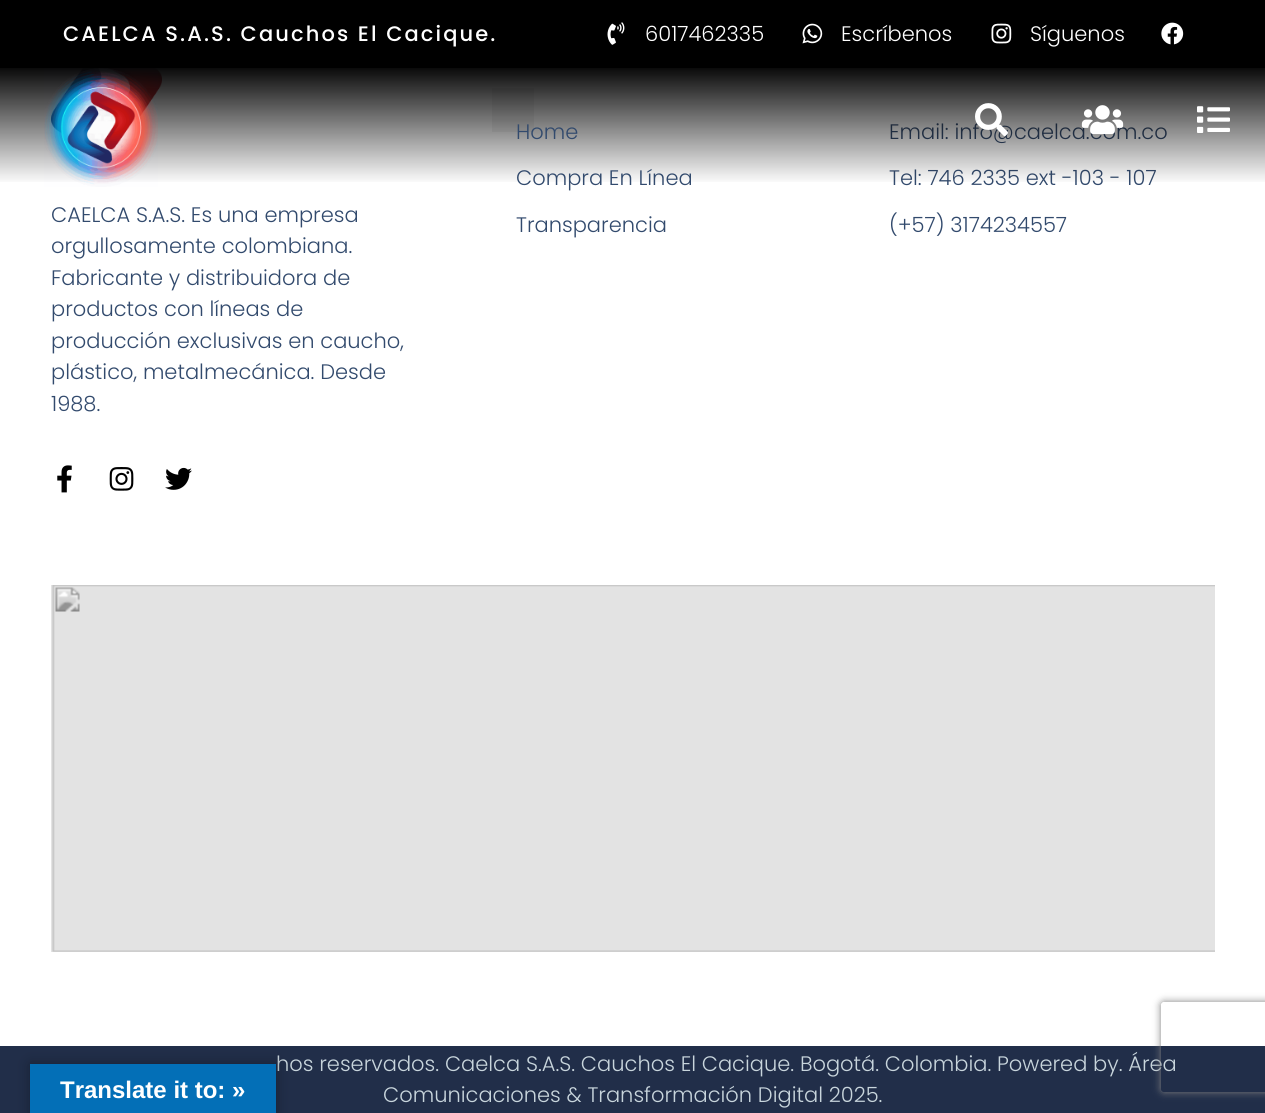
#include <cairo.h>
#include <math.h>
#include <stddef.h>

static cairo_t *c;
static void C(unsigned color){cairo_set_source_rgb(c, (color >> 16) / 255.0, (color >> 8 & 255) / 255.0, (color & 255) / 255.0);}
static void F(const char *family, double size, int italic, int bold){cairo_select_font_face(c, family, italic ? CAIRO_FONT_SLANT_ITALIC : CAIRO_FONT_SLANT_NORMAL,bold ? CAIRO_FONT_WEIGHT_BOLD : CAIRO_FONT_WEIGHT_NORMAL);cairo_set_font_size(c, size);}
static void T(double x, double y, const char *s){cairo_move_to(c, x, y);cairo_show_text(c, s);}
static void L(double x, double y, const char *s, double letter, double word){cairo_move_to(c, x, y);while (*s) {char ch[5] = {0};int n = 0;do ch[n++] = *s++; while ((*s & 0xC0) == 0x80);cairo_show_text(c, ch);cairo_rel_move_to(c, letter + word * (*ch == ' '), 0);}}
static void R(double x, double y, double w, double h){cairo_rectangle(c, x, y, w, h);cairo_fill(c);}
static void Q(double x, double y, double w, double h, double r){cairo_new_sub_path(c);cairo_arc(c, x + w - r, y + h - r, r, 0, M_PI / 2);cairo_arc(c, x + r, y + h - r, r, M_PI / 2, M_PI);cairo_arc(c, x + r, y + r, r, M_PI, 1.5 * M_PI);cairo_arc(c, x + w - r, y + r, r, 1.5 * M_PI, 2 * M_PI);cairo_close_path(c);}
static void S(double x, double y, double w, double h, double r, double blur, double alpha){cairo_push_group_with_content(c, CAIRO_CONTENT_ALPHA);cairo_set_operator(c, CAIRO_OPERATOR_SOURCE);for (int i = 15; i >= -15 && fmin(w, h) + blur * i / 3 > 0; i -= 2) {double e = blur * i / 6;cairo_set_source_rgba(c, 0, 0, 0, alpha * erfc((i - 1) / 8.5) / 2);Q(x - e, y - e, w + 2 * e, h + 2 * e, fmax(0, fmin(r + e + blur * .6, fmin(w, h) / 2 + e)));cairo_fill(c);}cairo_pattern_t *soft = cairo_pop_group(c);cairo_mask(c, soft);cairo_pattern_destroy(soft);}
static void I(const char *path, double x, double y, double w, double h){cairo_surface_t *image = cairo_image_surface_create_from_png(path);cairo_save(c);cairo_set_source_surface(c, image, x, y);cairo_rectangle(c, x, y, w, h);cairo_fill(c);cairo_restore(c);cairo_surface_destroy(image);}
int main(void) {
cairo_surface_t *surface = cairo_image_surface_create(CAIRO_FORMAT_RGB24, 1265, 1113);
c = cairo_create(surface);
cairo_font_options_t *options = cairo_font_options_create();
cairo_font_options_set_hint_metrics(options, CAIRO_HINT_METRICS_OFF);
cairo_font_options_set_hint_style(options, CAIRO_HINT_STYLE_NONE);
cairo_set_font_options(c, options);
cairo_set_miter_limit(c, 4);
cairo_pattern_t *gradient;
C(0xffffff);
cairo_paint(c);
C(0x000000);
R(0,0,1265,68);
F("Poppins Medium",21,0,0);
C(0xffffff);
L(63,41,"CAELCA S.A.S. Cauchos El Cacique.",2.1,0);
I("1.png",607,22,18,23);
F("Poppins Light",21,0,0);
T(645,41,"6017462335");
I("2.png",802,23,21,21);
T(841,41,"Escríbenos");
I("3.png",991,23,21,21);
T(1030,41,"Síguenos");
I("4.png",1161,22,23,23);
C(0x324a6d);
T(889,139,"Email: info@caelca.com.co");
T(889,185,"Tel: 746 2335 ext -103 - 107");
I("9.png",51,68,111,90);
gradient = cairo_pattern_create_linear(633,67,633,188);
cairo_pattern_add_color_stop_rgba(gradient,0,0.031,0.031,0.031,1);
cairo_pattern_add_color_stop_rgba(gradient,.97,0.031,0.031,0.031,0);
cairo_set_source(c,gradient);
cairo_pattern_destroy(gradient);
R(0,68,1265,114);
I("5.png",44,68,114,119);
cairo_set_source_rgba(c,0,0,0,0.05);
R(492,88,42,44);
I("6.png",975,103,33,34);
I("7.png",1081,105,43,30);
I("8.png",1197,106,33,27);
C(0x324a6d);
T(516,139,"Home");
T(516,185,"Compra En Línea");
T(516,232,"Transparencia");
T(889,232,"(+57) 3174234557");
T(51,222,"CAELCA S.A.S. Es una empresa");
T(51,253,"orgullosamente colombiana.");
T(51,285,"Fabricante y distribuidora de");
T(51,316,"productos con líneas de");
T(51,348,"producción exclusivas en caucho,");
T(51,379,"plástico, metalmecánica. Desde");
T(51,411,"1988.");
I("10.png",57,465,15,28);
I("11.png",109,467,25,24);
I("12.png",165,467,27,23);
I("13.png",51,585,1164,367);
C(0x212e49);
R(0,1046,1265,67);
C(0xc8d5dc);
T(276,1071,"hos reservados. Caelca S.A.S. Cauchos El Cacique. Bogotá. Colombia. Powered by. Área");
T(383,1102,"Comunicaciones & Transformación Digital 2025.");
cairo_save(c);
cairo_set_fill_rule(c,CAIRO_FILL_RULE_EVEN_ODD);
cairo_new_path(c);
cairo_move_to(c,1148,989);
cairo_line_to(c,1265,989);
cairo_line_to(c,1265,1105);
cairo_line_to(c,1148,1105);
cairo_close_path(c);
cairo_move_to(c,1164,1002);
cairo_line_to(c,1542,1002);
cairo_curve_to(c,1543.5,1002,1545,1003.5,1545,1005);
cairo_line_to(c,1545,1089);
cairo_curve_to(c,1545,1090.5,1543.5,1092,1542,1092);
cairo_line_to(c,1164,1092);
cairo_curve_to(c,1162.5,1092,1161,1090.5,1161,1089);
cairo_line_to(c,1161,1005);
cairo_curve_to(c,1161,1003.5,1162.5,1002,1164,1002);
cairo_close_path(c);
cairo_clip(c);
C(0x808080);
S(1161,1002,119,90,3,4,1);
cairo_restore(c);
C(0x000000);
S(30,1064,246,49,0,7,.3);
C(0x036fb7);
R(30,1064,246,49);
F("Liberation Sans",24,0,1);
C(0xffffff);
T(60,1098,"Translate it to: »");
cairo_surface_write_to_png(surface, "o.png");
cairo_font_options_destroy(options);
cairo_destroy(c);
cairo_surface_destroy(surface);
return 0;
}
